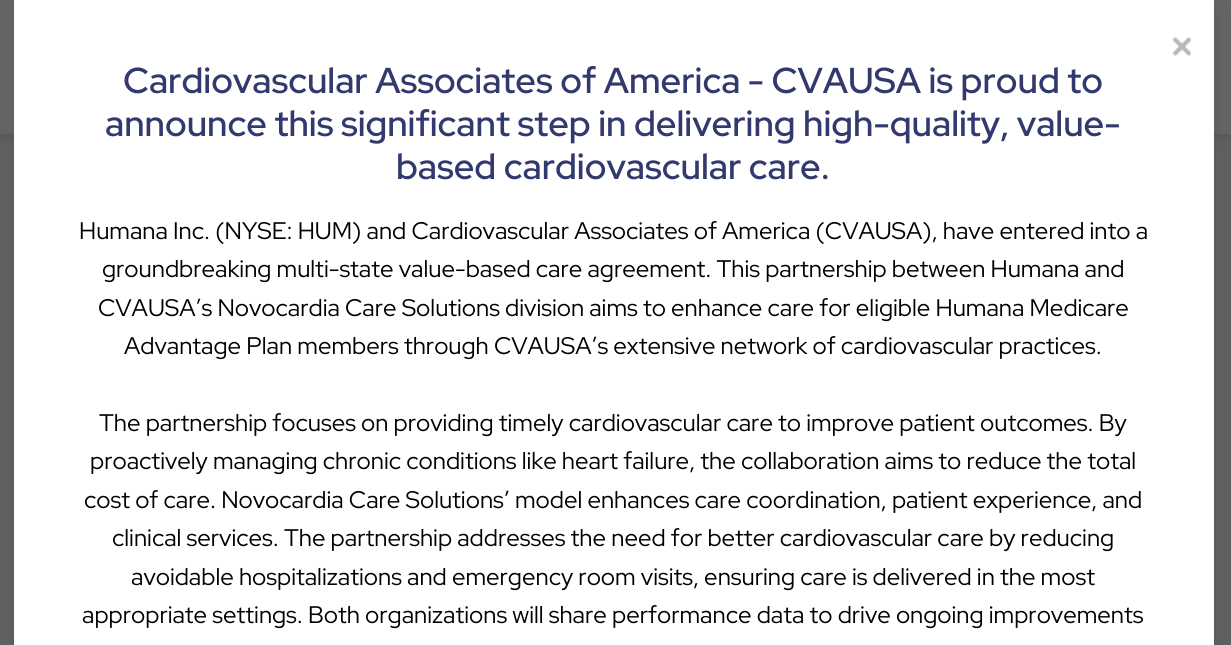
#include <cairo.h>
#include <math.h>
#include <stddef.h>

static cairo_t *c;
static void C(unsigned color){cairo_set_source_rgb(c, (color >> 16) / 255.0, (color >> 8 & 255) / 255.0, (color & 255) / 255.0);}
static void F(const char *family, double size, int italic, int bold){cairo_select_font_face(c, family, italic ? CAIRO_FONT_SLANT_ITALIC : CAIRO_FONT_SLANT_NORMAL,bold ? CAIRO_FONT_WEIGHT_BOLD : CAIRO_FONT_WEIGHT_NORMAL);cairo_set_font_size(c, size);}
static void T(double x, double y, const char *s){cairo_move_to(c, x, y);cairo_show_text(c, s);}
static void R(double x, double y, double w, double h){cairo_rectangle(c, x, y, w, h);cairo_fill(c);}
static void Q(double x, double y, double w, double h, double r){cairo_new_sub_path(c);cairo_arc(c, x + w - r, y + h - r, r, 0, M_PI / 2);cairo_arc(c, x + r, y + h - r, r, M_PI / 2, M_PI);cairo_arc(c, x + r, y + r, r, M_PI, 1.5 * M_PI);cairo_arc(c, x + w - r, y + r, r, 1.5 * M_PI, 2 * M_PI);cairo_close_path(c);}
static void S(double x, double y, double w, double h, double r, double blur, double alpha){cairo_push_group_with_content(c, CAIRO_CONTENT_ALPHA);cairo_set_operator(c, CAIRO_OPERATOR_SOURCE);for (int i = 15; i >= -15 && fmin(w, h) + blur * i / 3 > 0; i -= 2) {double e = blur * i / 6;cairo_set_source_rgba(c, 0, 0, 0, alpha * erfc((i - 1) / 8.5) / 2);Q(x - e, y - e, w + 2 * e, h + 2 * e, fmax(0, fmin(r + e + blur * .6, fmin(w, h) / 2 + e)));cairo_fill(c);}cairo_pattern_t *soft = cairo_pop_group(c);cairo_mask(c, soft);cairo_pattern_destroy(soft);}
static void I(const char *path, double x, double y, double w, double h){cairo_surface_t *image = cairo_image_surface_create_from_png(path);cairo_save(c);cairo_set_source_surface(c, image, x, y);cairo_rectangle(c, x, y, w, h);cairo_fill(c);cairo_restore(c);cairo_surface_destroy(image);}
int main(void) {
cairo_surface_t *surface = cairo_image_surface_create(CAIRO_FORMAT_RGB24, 1231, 645);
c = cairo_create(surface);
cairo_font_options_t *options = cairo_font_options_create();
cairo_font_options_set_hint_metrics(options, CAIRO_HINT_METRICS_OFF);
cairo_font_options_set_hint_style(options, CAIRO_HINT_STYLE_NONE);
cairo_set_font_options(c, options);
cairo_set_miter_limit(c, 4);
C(0x626263);
cairo_paint(c);
C(0x525252);
S(0,0,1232,134,0,7.5,1);
C(0x666666);
R(0,0,1231,134);
C(0x000000);
S(14,12,1200,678,0,15,.1);
C(0xffffff);
R(14,0,1200,645);
I("1.png",1172,37,19,19);
F("Red Hat Display Medium",36,0,0);
C(0x32396e);
T(123,93,"Cardiovascular Associates of America - CVAUSA is proud to");
T(105,136,"announce this significant step in delivering high-quality, value-");
T(396,179,"based cardiovascular care.");
F("Red Hat Display",24,0,0);
C(0x000000);
T(79,239,"Humana Inc. (NYSE: HUM) and Cardiovascular Associates of America (CVAUSA), have entered into a");
T(102,277,"groundbreaking multi-state value-based care agreement. This partnership between Humana and");
T(98,316,"CVAUSA’s Novocardia Care Solutions division aims to enhance care for eligible Humana Medicare");
T(124,354,"Advantage Plan members through CVAUSA’s extensive network of cardiovascular practices.");
T(99,431,"The partnership focuses on providing timely cardiovascular care to improve patient outcomes. By");
T(90,469,"proactively managing chronic conditions like heart failure, the collaboration aims to reduce the total");
T(84,508,"cost of care. Novocardia Care Solutions’ model enhances care coordination, patient experience, and");
T(112,546,"clinical services. The partnership addresses the need for better cardiovascular care by reducing");
T(131,585,"avoidable hospitalizations and emergency room visits, ensuring care is delivered in the most");
T(82,623,"appropriate settings. Both organizations will share performance data to drive ongoing improvements");
cairo_surface_write_to_png(surface, "o.png");
cairo_font_options_destroy(options);
cairo_destroy(c);
cairo_surface_destroy(surface);
return 0;
}
